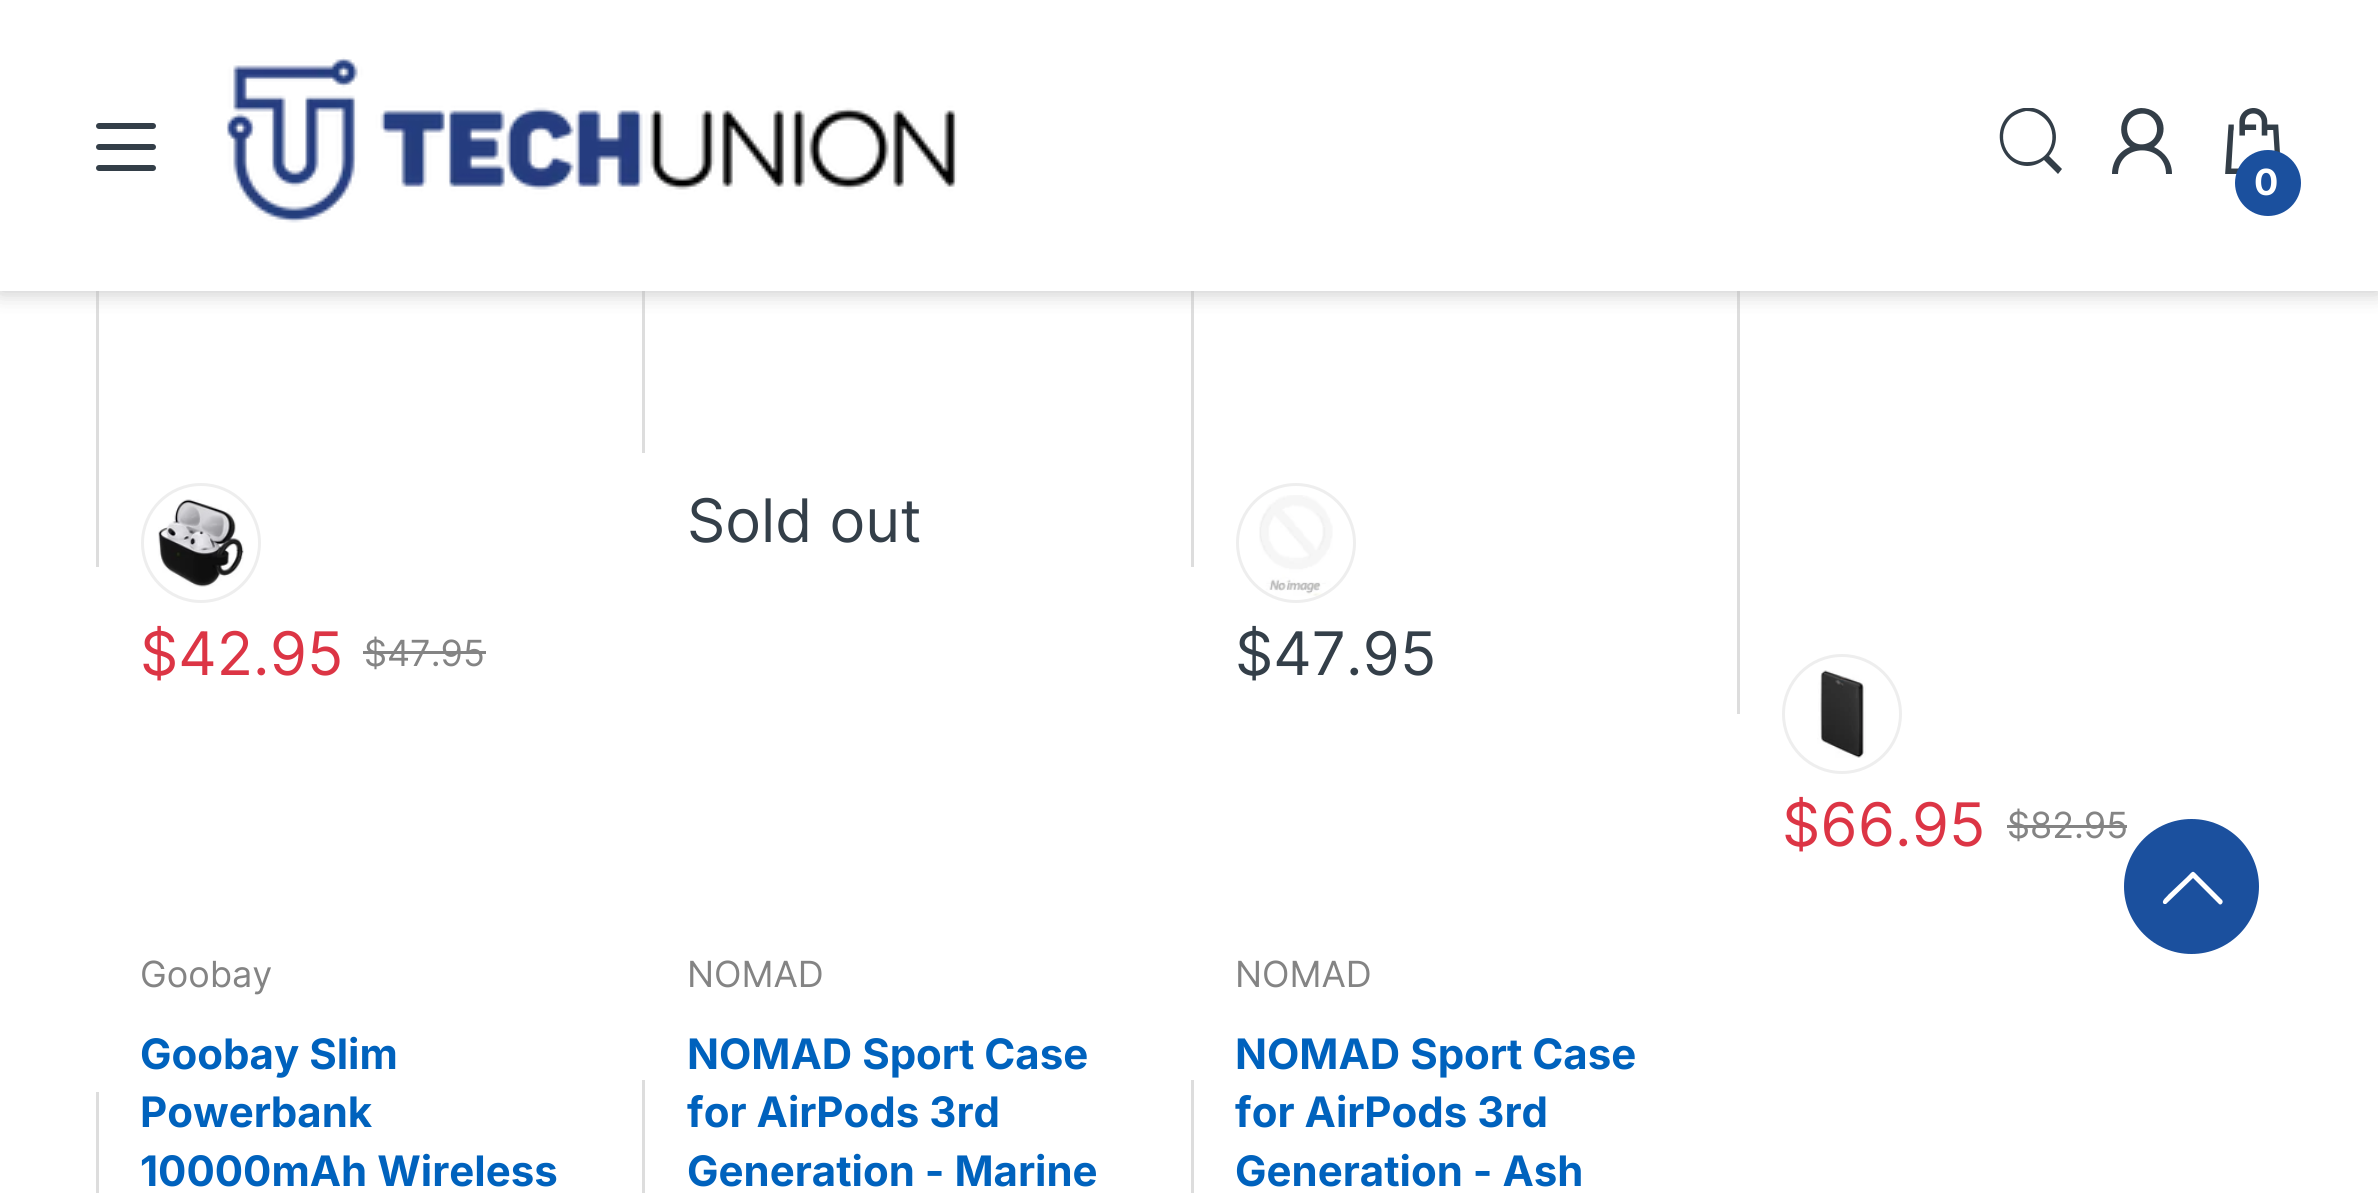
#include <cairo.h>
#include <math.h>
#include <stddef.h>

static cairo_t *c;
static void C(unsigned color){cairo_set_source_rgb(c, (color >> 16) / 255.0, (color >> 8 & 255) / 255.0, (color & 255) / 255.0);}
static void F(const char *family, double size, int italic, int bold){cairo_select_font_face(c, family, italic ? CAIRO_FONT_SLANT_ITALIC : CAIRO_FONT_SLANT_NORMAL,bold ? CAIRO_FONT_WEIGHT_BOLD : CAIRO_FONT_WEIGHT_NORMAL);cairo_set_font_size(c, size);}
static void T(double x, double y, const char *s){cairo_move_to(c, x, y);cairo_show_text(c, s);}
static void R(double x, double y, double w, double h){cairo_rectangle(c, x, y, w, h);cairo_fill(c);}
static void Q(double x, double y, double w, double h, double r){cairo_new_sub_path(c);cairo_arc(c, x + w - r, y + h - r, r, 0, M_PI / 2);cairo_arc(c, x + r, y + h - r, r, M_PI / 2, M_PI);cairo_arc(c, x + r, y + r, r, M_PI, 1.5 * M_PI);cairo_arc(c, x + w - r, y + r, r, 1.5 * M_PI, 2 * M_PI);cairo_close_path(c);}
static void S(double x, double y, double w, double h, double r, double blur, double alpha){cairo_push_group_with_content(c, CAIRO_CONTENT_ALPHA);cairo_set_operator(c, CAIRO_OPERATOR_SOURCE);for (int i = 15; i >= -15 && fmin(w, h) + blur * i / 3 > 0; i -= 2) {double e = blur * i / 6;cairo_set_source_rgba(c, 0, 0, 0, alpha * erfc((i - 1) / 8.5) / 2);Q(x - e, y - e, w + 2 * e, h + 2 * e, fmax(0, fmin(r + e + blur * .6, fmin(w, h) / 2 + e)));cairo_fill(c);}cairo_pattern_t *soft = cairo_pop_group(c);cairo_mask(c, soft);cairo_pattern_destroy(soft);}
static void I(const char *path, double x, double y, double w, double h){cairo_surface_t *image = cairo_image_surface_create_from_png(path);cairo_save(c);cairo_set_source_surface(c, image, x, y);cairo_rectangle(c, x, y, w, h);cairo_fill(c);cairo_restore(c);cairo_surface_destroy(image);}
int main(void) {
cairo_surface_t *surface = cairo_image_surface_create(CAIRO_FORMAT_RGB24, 2378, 1193);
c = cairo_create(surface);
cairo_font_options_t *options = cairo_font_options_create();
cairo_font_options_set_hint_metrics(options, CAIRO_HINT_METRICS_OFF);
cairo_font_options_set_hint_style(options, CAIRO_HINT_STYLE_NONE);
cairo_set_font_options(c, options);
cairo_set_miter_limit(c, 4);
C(0xffffff);
cairo_paint(c);
C(0xdddddd);
R(642,291,3,162);
R(96,291,3,276);
R(1191,291,3,276);
R(1737,291,3,423);
C(0x202124);
S(0,0,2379,291,0,9,.15);
C(0xffffff);
R(0,0,2378,291);
cairo_save(c);
cairo_rectangle(c,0,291,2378,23);
cairo_clip(c);
C(0xc9c9c9);
S(0,0,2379,291,0,12,.75);
cairo_restore(c);
I("1.png",96,123,60,48);
I("2.png",226,57,731,166);
cairo_save(c);
cairo_rectangle(c,1998,108,66,66);
cairo_clip(c);
C(0x333e48);
cairo_new_path(c);
cairo_move_to(c,2017,110);
cairo_curve_to(c,2045,98,2068,133,2049,156);
cairo_line_to(c,2062,169);
cairo_line_to(c,2058,174);
cairo_line_to(c,2044,160);
cairo_curve_to(c,2039,164,2033,166,2027,166);
cairo_curve_to(c,1997,165,1989,122,2017,110);
cairo_move_to(c,2026,111);
cairo_curve_to(c,2021,112,2016,114,2012,117);
cairo_curve_to(c,1994,133,2005,164,2029,162);
cairo_curve_to(c,2054,161,2061,128,2040,115);
cairo_curve_to(c,2036,112,2031,111,2026,111);
cairo_close_path(c);
cairo_fill(c);
cairo_restore(c);
C(0x333e48);
cairo_new_path(c);
cairo_move_to(c,2141,108);
cairo_curve_to(c,2163,108,2172,133,2154,147);
cairo_curve_to(c,2165,152,2172,162,2172,174);
cairo_line_to(c,2166,174);
cairo_curve_to(c,2166,143,2119,142,2118,174);
cairo_line_to(c,2112,174);
cairo_curve_to(c,2112,162,2119,151,2130,147);
cairo_curve_to(c,2114,135,2121,109,2141,108);
cairo_move_to(c,2139,114);
cairo_curve_to(c,2120,118,2125,148,2145,144);
cairo_curve_to(c,2165,139,2158,110,2139,114);
cairo_close_path(c);
cairo_fill(c);
I("3.png",2225,108,55,66);
C(0x1b509e);
cairo_arc(c,2268,183,33,0,2 * M_PI);
cairo_fill(c);
F("Inter",36,0,1);
C(0xffffff);
T(2254,195,"0");
F("Inter",60,0,0);
C(0x343f49);
T(687,542,"Sold out");
I("4.png",158,499,86,88);
cairo_arc(c,201,543,58.5,0,2 * M_PI);
C(0xeeeeee);
cairo_set_line_width(c,3);
cairo_stroke(c);
C(0xdc3545);
T(140,675,"$42.95");
F("Inter",36,0,0);
C(0x848484);
T(364,666,"$47.95");
R(363,651,123,3);
I("5.png",1259,495,74,101);
cairo_arc(c,1296,543,58.5,0,2 * M_PI);
C(0xeeeeee);
cairo_stroke(c);
F("Inter",60,0,0);
C(0x343f49);
T(1235,675,"$47.95");
I("6.png",1817,670,49,88);
cairo_arc(c,1842,714,58.5,0,2 * M_PI);
C(0xeeeeee);
cairo_stroke(c);
C(0xdc3545);
T(1782,846,"$66.95");
F("Inter",36,0,0);
C(0x848484);
T(2007,838,"$82.95");
R(2007,825,120,3);
C(0xdddddd);
R(96,1092,3,101);
C(0x848484);
T(140,987,"Goobay");
F("Inter",42,0,1);
C(0x0062bd);
T(140,1069,"Goobay Slim");
T(140,1127,"Powerbank");
T(140,1186,"10000mAh Wireless");
C(0xdddddd);
R(642,1080,3,113);
F("Inter",36,0,0);
C(0x848484);
T(687,987,"NOMAD");
F("Inter",42,0,1);
C(0x0062bd);
T(687,1069,"NOMAD Sport Case");
T(687,1127,"for AirPods 3rd");
T(687,1186,"Generation - Marine");
C(0xdddddd);
R(1191,1080,3,113);
F("Inter",36,0,0);
C(0x848484);
T(1235,987,"NOMAD");
F("Inter",42,0,1);
C(0x0062bd);
T(1235,1069,"NOMAD Sport Case");
T(1235,1127,"for AirPods 3rd");
T(1235,1186,"Generation - Ash");
C(0x1b509e);
cairo_new_path(c);
cairo_arc(c,2191.5,886.5,67.5,0,2 * M_PI);
cairo_fill(c);
C(0xffffff);
cairo_new_path(c);
cairo_move_to(c,2222,900);
cairo_line_to(c,2199,877);
cairo_curve_to(c,2192,870,2194,870,2187,877);
cairo_line_to(c,2168,895);
cairo_curve_to(c,2168,896,2160,901,2164,904);
cairo_line_to(c,2166,904);
cairo_line_to(c,2193,878);
cairo_line_to(c,2219,904);
cairo_curve_to(c,2221,906,2224,902,2222,900);
cairo_close_path(c);
cairo_fill(c);
cairo_surface_write_to_png(surface, "o.png");
cairo_font_options_destroy(options);
cairo_destroy(c);
cairo_surface_destroy(surface);
return 0;
}
